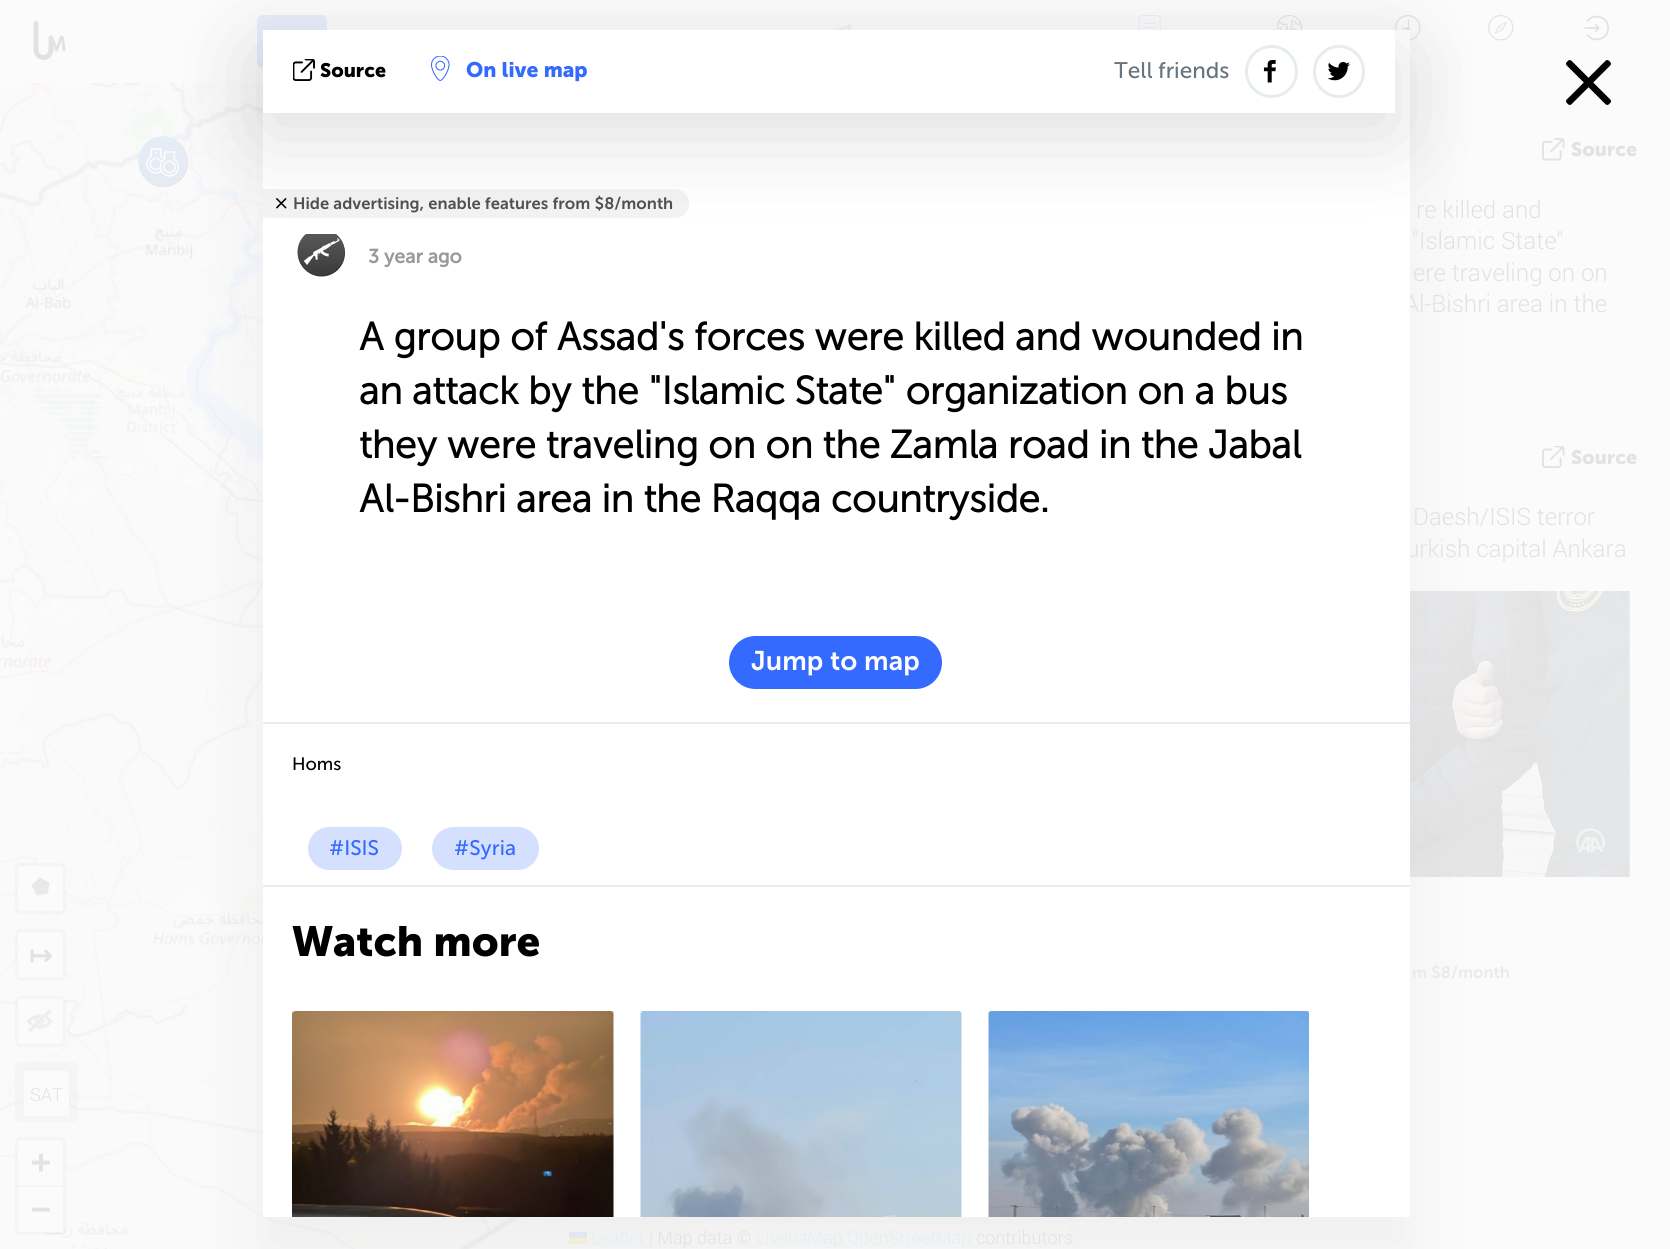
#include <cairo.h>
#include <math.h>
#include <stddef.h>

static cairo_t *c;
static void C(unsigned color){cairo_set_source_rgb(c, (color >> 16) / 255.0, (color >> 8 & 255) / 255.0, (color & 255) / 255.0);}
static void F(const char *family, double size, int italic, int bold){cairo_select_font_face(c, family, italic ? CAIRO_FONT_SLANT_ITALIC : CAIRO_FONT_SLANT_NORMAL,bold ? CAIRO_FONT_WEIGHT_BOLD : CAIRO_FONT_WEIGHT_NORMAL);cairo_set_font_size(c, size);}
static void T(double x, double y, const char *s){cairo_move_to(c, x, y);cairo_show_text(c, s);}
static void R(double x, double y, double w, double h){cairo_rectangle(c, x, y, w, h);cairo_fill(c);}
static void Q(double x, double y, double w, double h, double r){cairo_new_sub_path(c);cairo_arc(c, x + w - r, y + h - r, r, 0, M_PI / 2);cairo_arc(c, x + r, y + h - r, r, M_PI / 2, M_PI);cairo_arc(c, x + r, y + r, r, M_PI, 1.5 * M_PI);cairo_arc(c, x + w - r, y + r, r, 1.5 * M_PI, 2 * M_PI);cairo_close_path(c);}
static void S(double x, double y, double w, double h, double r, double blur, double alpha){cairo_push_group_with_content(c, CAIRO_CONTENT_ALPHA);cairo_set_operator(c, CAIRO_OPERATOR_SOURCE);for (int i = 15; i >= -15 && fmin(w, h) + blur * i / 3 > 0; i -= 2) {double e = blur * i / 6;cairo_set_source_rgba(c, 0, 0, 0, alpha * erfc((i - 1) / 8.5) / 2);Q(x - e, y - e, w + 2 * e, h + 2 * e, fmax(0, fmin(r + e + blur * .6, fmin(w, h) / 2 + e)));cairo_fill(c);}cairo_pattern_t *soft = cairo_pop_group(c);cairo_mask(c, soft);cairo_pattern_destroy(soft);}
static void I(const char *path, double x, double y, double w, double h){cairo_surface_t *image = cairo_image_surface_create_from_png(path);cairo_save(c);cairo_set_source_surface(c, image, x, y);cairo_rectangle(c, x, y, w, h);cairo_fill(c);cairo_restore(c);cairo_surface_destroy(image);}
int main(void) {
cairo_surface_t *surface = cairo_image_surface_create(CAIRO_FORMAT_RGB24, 1670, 1249);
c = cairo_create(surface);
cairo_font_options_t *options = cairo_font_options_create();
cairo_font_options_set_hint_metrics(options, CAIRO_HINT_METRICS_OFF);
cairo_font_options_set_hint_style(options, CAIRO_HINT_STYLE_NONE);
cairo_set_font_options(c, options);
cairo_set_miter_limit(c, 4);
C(0xffffff);
cairo_paint(c);
C(0xfbfbfb);
R(0,0,1079,83);
C(0xe7edfb);
Q(257,15,70,53,6);
cairo_fill(c);
I("12.png",836,24,16,6);
C(0xfbfbfb);
R(1079,0,591,1249);
I("13.png",1138,15,23,15);
I("14.png",1277,15,25,15);
I("15.png",1395,15,26,26);
I("16.png",1488,15,26,26);
I("20.png",1410,591,220,286);
I("21.png",0,83,173,133);
I("22.png",173,83,90,133);
I("23.png",0,216,173,384);
I("24.png",173,216,90,384);
I("25.png",0,600,173,384);
I("26.png",173,600,90,384);
I("27.png",0,984,173,265);
I("28.png",173,984,384,265);
I("29.png",557,1217,384,32);
I("30.png",941,1217,138,32);
I("31.png",138,136,50,51);
I("32.png",138,136,50,51);
I("33.png",138,136,50,51);
I("34.png",138,136,50,51);
cairo_set_source_rgba(c,0.984,0.984,0.984,0.7);
R(1068,1222,11,2);
cairo_set_source_rgba(c,0.984,0.984,0.984,0.8);
R(691,1224,377,25);
C(0xeaeef8);
R(569,1232,18,6);
C(0xfbf7e2);
R(569,1238,18,4);
C(0xf8f5e2);
R(569,1242,18,2);
C(0x000000);
S(263,68,1147,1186,0,37.5,.05);
F("Roboto Light",24,0,0);
C(0xe2e2e2);
T(1404,312,"Al-Bishri area in the");
T(1406,557,"urkish capital Ankara");
C(0xffffff);
R(263,30,1147,1187);
C(0xf3f3f3);
cairo_new_path(c);
cairo_move_to(c,263,189);
cairo_line_to(c,674.5,189);
cairo_curve_to(c,682.5,189,689,195.5,689,203.5);
cairo_curve_to(c,689,211.5,682.5,218,674.5,218);
cairo_line_to(c,263,218);
cairo_close_path(c);
cairo_fill(c);
I("6.png",276,198,11,11);
I("7.png",297,234,48,43);
C(0x100f0f);
S(263,53,1132,82,0,45,.14);
C(0xffffff);
R(263,30,1132,83);
I("1.png",293,59,22,22);
F("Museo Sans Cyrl",19.5,0,1);
C(0x000000);
T(320,77,"Source");
I("2.png",431,56,19,25);
F("Museo Sans Cyrl",21,0,1);
C(0x346afe);
T(466,77,"On live map");
F("Museo Sans Cyrl",22.5,0,0);
C(0x66757f);
T(1114,78,"Tell friends");
I("3.png",1263,60,13,23);
cairo_arc(c,1271.5,71.5,25,0,2 * M_PI);
C(0xe6ecef);
cairo_set_line_width(c,3);
cairo_stroke(c);
I("4.png",1328,62,22,19);
Q(1314.5,46.5,49,50,24.5);
cairo_stroke(c);
I("5.png",1566,60,45,45);
F("Museo Sans Cyrl SemiBold",16.5,0,0);
C(0x505050);
T(293,209,"Hide advertising, enable features from $8/month");
F("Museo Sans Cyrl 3",19.5,0,1);
C(0x999999);
T(368,263,"3 year ago");
F("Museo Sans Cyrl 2",39,0,1);
C(0x000000);
T(359,350,"A group of Assad's forces were killed and wounded in");
T(359,404,"an attack by the \"Islamic State\" organization on a bus");
T(359,458,"they were traveling on on the Zamla road in the Jabal");
T(359,512,"Al-Bishri area in the Raqqa countryside.");
C(0xececec);
R(263,722,1147,2);
C(0x346afe);
Q(729,636,213,53,26.5);
cairo_fill(c);
F("Museo Sans Cyrl SemiBold",27,0,0);
C(0xffffff);
T(751,670,"Jump to map");
F("Museo Sans Cyrl",18,0,0);
C(0x000000);
T(292,770,"Homs");
C(0xd5e0ff);
Q(308,827,94,43,21.5);
cairo_fill(c);
F("Museo Sans Cyrl",21,0,0);
C(0x346afe);
T(329,855,"#ISIS");
C(0xd5e0ff);
Q(432,827,107,43,21.5);
cairo_fill(c);
C(0x346afe);
T(454,855,"#Syria");
C(0xececec);
R(263,885,1147,2);
F("Museo Sans Cyrl",42,0,1);
C(0x000000);
T(292,956,"Watch more");
I("8.png",292,1011,322,206);
I("9.png",640,1011,322,206);
I("10.png",988,1011,321,206);
I("11.png",33,21,33,39);
I("17.png",1584,15,25,26);
I("18.png",1542,138,23,23);
F("Museo Sans Cyrl",19.5,0,1);
C(0xe2e2e2);
T(1571,156,"Source");
F("Roboto Light",24,0,0);
T(1416,218,"re killed and");
T(1412,249,"\"Islamic State\"");
T(1413,281,"ere traveling on on");
I("19.png",1542,446,23,22);
F("Museo Sans Cyrl",19.5,0,1);
T(1571,464,"Source");
F("Roboto Light",24,0,0);
T(1413,525,"Daesh/ISIS terror");
F("Museo Sans Cyrl SemiBold",16.5,0,0);
C(0xeaeaea);
T(1412,978,"m $8/month");
Q(16.5,864.5,48,48,4.5);
cairo_set_source_rgba(c,0.886,0.886,0.886,0.2);
cairo_stroke(c);
C(0xfbfbfb);
Q(18,866,45,45,3);
cairo_fill(c);
I("35.png",31,877,19,19);
Q(16.5,930.5,48,49,4.5);
cairo_set_source_rgba(c,0.886,0.886,0.886,0.2);
cairo_stroke(c);
C(0xfbfbfb);
cairo_new_path(c);
cairo_move_to(c,21,932);
cairo_line_to(c,60,932);
cairo_curve_to(c,61.5,932,63,933.5,63,935);
cairo_line_to(c,63,978);
cairo_line_to(c,18,978);
cairo_line_to(c,18,935);
cairo_curve_to(c,18,933.5,19.5,932,21,932);
cairo_close_path(c);
cairo_fill(c);
C(0xf6f6f6);
R(18,977,45,1);
F("DejaVu Sans",28,0,1);
C(0xe2e2e2);
T(29,965,"↦");
Q(16.5,997.5,48,48,4.5);
cairo_set_source_rgba(c,0.886,0.886,0.886,0.2);
cairo_stroke(c);
C(0xfbfbfb);
Q(18,999,45,45,3);
cairo_fill(c);
I("36.png",26,1009,27,24);
Q(16.5,1063.5,60,57,4.5);
cairo_set_source_rgba(c,0.886,0.886,0.886,0.2);
cairo_stroke(c);
Q(19.5,1066.5,54,51,4.5);
cairo_stroke(c);
C(0xfbfbfb);
cairo_new_path(c);
cairo_move_to(c,24,1071);
cairo_line_to(c,69,1071);
cairo_line_to(c,69,1116);
cairo_line_to(c,24,1116);
cairo_line_to(c,24,1113);
cairo_close_path(c);
cairo_fill(c);
cairo_set_source_rgba(c,0.886,0.886,0.886,0.2);
R(23,1068,48,3);
R(69,1070,3,45);
R(21,1070,3,45);
F("Roboto Light",18,0,0);
C(0xe2e2e2);
T(30,1101,"SAT");
Q(16.5,1138.5,48,95,4.5);
cairo_set_source_rgba(c,0.886,0.886,0.886,0.2);
cairo_stroke(c);
C(0xfbfbfb);
cairo_new_path(c);
cairo_move_to(c,21,1140);
cairo_line_to(c,60,1140);
cairo_curve_to(c,61.5,1140,63,1141.5,63,1143);
cairo_line_to(c,63,1187);
cairo_line_to(c,18,1187);
cairo_line_to(c,18,1143);
cairo_curve_to(c,18,1141.5,19.5,1140,21,1140);
cairo_close_path(c);
cairo_fill(c);
C(0xf6f6f6);
R(18,1185,45,2);
F("DejaVu Sans Mono",33,0,1);
C(0xe2e2e2);
T(31,1173,"+");
C(0xfbfbfb);
cairo_new_path(c);
cairo_move_to(c,18,1187);
cairo_line_to(c,63,1187);
cairo_line_to(c,63,1229);
cairo_curve_to(c,63,1230.5,61.5,1232,60,1232);
cairo_line_to(c,21,1232);
cairo_curve_to(c,19.5,1232,18,1230.5,18,1229);
cairo_close_path(c);
cairo_fill(c);
C(0xe2e2e2);
T(31,1220,"−");
F("Roboto Light",18,0,0);
C(0xe2eef3);
T(591,1244,"Leaflet");
C(0xe2e2e2);
T(649,1244,"| Map data ©");
C(0xe2eef3);
T(756,1244,"LiveuaMap OpenStreetMap");
C(0xe2e2e2);
T(976,1244,"contributors");
cairo_surface_write_to_png(surface, "o.png");
cairo_font_options_destroy(options);
cairo_destroy(c);
cairo_surface_destroy(surface);
return 0;
}
